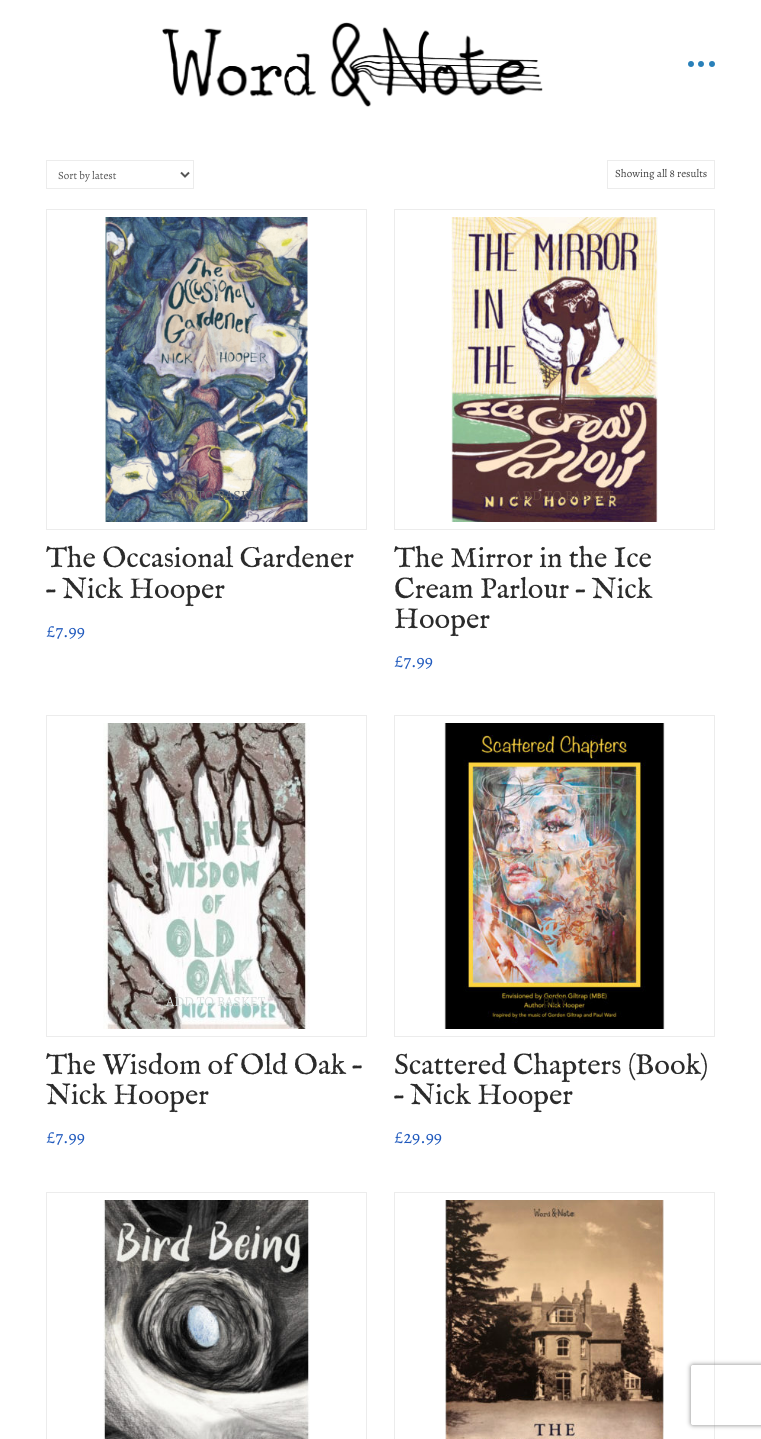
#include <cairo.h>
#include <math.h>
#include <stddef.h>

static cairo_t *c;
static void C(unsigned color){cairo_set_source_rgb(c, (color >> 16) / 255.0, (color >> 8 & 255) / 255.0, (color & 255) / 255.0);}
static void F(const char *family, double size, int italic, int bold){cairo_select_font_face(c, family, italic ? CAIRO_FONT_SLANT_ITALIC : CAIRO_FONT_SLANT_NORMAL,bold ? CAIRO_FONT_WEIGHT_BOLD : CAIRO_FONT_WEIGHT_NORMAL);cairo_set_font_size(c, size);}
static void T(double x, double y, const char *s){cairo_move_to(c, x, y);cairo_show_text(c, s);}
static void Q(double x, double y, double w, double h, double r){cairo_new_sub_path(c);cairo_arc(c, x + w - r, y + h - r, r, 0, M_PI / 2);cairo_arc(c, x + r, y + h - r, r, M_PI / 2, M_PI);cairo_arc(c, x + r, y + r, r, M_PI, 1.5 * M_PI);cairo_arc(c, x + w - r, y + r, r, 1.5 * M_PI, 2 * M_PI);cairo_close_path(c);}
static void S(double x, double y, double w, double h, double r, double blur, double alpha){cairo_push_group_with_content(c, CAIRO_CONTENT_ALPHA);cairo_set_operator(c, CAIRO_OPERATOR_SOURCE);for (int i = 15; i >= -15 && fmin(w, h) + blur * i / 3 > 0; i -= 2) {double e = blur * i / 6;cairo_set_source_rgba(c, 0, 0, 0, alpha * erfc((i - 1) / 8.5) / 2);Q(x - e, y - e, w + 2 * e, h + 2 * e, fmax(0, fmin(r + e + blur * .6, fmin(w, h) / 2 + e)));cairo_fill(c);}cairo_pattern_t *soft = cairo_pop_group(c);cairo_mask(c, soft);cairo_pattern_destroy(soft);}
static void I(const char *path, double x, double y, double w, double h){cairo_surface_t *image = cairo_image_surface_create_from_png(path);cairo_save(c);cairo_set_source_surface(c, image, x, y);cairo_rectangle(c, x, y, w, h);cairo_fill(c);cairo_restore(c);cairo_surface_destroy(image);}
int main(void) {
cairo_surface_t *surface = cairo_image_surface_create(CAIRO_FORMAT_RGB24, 761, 1439);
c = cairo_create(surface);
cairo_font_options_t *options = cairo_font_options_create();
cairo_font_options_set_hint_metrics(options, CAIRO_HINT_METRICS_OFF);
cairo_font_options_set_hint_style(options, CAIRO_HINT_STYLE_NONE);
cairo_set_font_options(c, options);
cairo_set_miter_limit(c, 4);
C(0xffffff);
cairo_paint(c);
I("1.png",162,22,381,85);
C(0x2980b9);
cairo_arc(c,691,64,3,0,2 * M_PI);
cairo_fill(c);
cairo_arc(c,701,64,3,0,2 * M_PI);
cairo_fill(c);
cairo_arc(c,712,64,3,0,2 * M_PI);
cairo_fill(c);
cairo_rectangle(c,46.5,160.5,147,28);
C(0xececec);
cairo_set_line_width(c,1);
cairo_stroke(c);
cairo_new_path(c);
cairo_move_to(c,181,172.5);
cairo_line_to(c,185,176.5);
cairo_line_to(c,189,172.5);
C(0x555555);
cairo_set_line_width(c,2);
cairo_stroke(c);
F("Alegreya",11,0,0);
T(58,179,"Sort by latest");
cairo_rectangle(c,607.5,160.5,107,28);
C(0xececec);
cairo_set_line_width(c,1);
cairo_stroke(c);
C(0x424242);
T(615,177,"Showing all 8 results");
cairo_rectangle(c,46.5,209.5,320,320);
C(0xececec);
cairo_stroke(c);
I("2.png",105,217,203,305);
F("Alegreya",14,0,0);
C(0x696c72);
T(166,500,"ADD TO BASKET");
F("IM FELL English",29,0,0);
C(0x2b2b2b);
T(46,567,"The Occasional Gardener");
T(46,598,"– Nick Hooper");
F("Alegreya",18,0,0);
C(0x1f59bd);
T(46,637,"£7.99");
cairo_rectangle(c,394.5,209.5,320,320);
C(0xececec);
cairo_stroke(c);
I("3.png",451,217,207,305);
F("Alegreya",14,0,0);
C(0x674741);
T(514,500,"ADD TO BASKET");
F("IM FELL English",29,0,0);
C(0x2b2b2b);
T(394,567,"The Mirror in the Ice");
T(394,598,"Cream Parlour – Nick");
T(394,628,"Hooper");
F("Alegreya",18,0,0);
C(0x1f59bd);
T(394,667,"£7.99");
cairo_rectangle(c,46.5,715.5,320,321);
C(0xececec);
cairo_stroke(c);
I("4.png",103,723,207,306);
F("Alegreya",14,0,0);
C(0xd8dedd);
T(166,1006,"ADD TO BASKET");
F("IM FELL English",29,0,0);
C(0x2b2b2b);
T(46,1074,"The Wisdom of Old Oak –");
T(46,1104,"Nick Hooper");
F("Alegreya",18,0,0);
C(0x1f59bd);
T(46,1143,"£7.99");
cairo_rectangle(c,394.5,715.5,320,321);
C(0xececec);
cairo_stroke(c);
I("5.png",444,723,221,306);
F("Alegreya",14,0,0);
C(0x28220d);
T(542,1006,"BUY");
F("IM FELL English",29,0,0);
C(0x2b2b2b);
T(394,1074,"Scattered Chapters (Book)");
T(394,1104,"– Nick Hooper");
F("Alegreya",18,0,0);
C(0x1f59bd);
T(394,1143,"£29.99");
cairo_rectangle(c,46.5,1192.5,320,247);
C(0xececec);
cairo_stroke(c);
I("6.png",103,1200,207,239);
cairo_rectangle(c,394.5,1192.5,320,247);
cairo_stroke(c);
I("7.png",445,1200,219,239);
cairo_save(c);
cairo_set_fill_rule(c,CAIRO_FILL_RULE_EVEN_ODD);
cairo_new_path(c);
cairo_move_to(c,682,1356);
cairo_line_to(c,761,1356);
cairo_line_to(c,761,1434);
cairo_line_to(c,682,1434);
cairo_close_path(c);
cairo_move_to(c,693,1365);
cairo_line_to(c,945,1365);
cairo_curve_to(c,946,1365,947,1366,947,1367);
cairo_line_to(c,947,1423);
cairo_curve_to(c,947,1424,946,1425,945,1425);
cairo_line_to(c,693,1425);
cairo_curve_to(c,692,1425,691,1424,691,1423);
cairo_line_to(c,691,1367);
cairo_curve_to(c,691,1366,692,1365,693,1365);
cairo_close_path(c);
cairo_clip(c);
C(0x808080);
S(691,1365,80,60,2,2.5,1);
cairo_restore(c);
cairo_surface_write_to_png(surface, "o.png");
cairo_font_options_destroy(options);
cairo_destroy(c);
cairo_surface_destroy(surface);
return 0;
}
